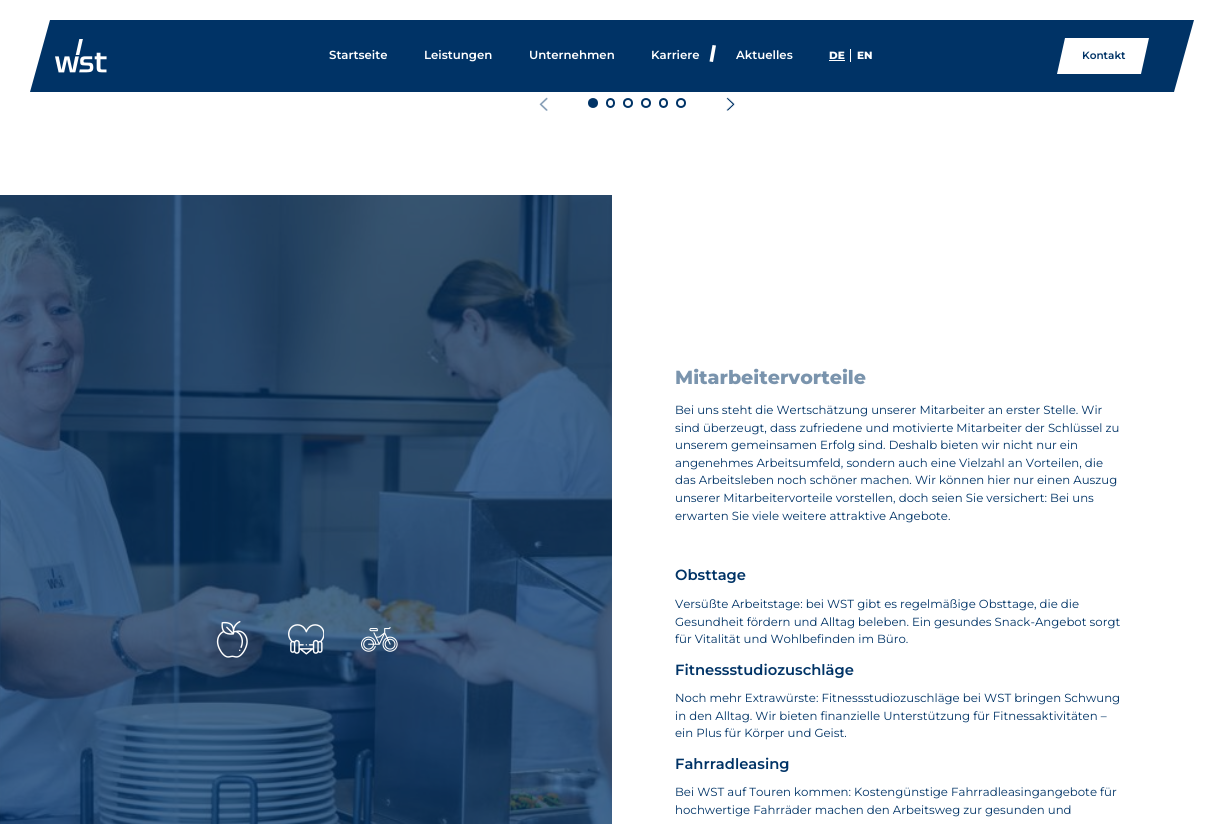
#include <cairo.h>
#include <math.h>
#include <stddef.h>

static cairo_t *c;
static void C(unsigned color){cairo_set_source_rgb(c, (color >> 16) / 255.0, (color >> 8 & 255) / 255.0, (color & 255) / 255.0);}
static void F(const char *family, double size, int italic, int bold){cairo_select_font_face(c, family, italic ? CAIRO_FONT_SLANT_ITALIC : CAIRO_FONT_SLANT_NORMAL,bold ? CAIRO_FONT_WEIGHT_BOLD : CAIRO_FONT_WEIGHT_NORMAL);cairo_set_font_size(c, size);}
static void T(double x, double y, const char *s){cairo_move_to(c, x, y);cairo_show_text(c, s);}
static void R(double x, double y, double w, double h){cairo_rectangle(c, x, y, w, h);cairo_fill(c);}
static void Q(double x, double y, double w, double h, double r){cairo_new_sub_path(c);cairo_arc(c, x + w - r, y + h - r, r, 0, M_PI / 2);cairo_arc(c, x + r, y + h - r, r, M_PI / 2, M_PI);cairo_arc(c, x + r, y + r, r, M_PI, 1.5 * M_PI);cairo_arc(c, x + w - r, y + r, r, 1.5 * M_PI, 2 * M_PI);cairo_close_path(c);}
static void I(const char *path, double x, double y, double w, double h){cairo_surface_t *image = cairo_image_surface_create_from_png(path);cairo_save(c);cairo_set_source_surface(c, image, x, y);cairo_rectangle(c, x, y, w, h);cairo_fill(c);cairo_restore(c);cairo_surface_destroy(image);}
int main(void) {
cairo_surface_t *surface = cairo_image_surface_create(CAIRO_FORMAT_RGB24, 1224, 824);
c = cairo_create(surface);
cairo_font_options_t *options = cairo_font_options_create();
cairo_font_options_set_hint_metrics(options, CAIRO_HINT_METRICS_OFF);
cairo_font_options_set_hint_style(options, CAIRO_HINT_STYLE_NONE);
cairo_set_font_options(c, options);
cairo_set_miter_limit(c, 4);
C(0xffffff);
cairo_paint(c);
C(0x003366);
R(50,20,1124,72);
cairo_new_path(c);
cairo_move_to(c,50,92);
cairo_line_to(c,30,92);
cairo_line_to(c,50,20);
cairo_close_path(c);
cairo_fill(c);
I("1.png",55,39,52,34);
F("Montserrat SemiBold",11.75,0,0);
C(0xffffff);
T(329,59,"Startseite");
T(424,59,"Leistungen");
T(529,59,"Unternehmen");
T(651,59,"Karriere");
cairo_new_path(c);
cairo_move_to(c,712.5,45);
cairo_line_to(c,716,45.5);
cairo_line_to(c,713,62);
cairo_line_to(c,709.5,61.5);
cairo_close_path(c);
cairo_fill(c);
T(736,59,"Aktuelles");
F("Montserrat ExtraBold",10.5,0,0);
T(829,59,"DE");
R(850,49,1,13);
R(829,60,16,1);
T(857,59,"EN");
cairo_new_path(c);
cairo_move_to(c,1065,38);
cairo_line_to(c,1149,38);
cairo_line_to(c,1141,74);
cairo_line_to(c,1057,74);
cairo_close_path(c);
cairo_fill(c);
F("Montserrat SemiBold",10.5,0,0);
C(0x003366);
T(1082,59,"Kontakt");
cairo_new_path(c);
cairo_move_to(c,1174,92);
cairo_line_to(c,1174,20);
cairo_line_to(c,1194,20);
cairo_close_path(c);
cairo_fill(c);
I("2.png",539,97,9,14);
cairo_arc(c,593,103,4,0,2 * M_PI);
cairo_fill_preserve(c);
cairo_stroke(c);
Q(607,99,7,8,3.5);
cairo_stroke(c);
cairo_arc(c,628,103,4,0,2 * M_PI);
cairo_stroke(c);
cairo_arc(c,646,103,4,0,2 * M_PI);
cairo_stroke(c);
Q(660,99,7,8,3.5);
cairo_stroke(c);
cairo_arc(c,681,103,4,0,2 * M_PI);
cairo_stroke(c);
I("3.png",726,97,9,14);
I("4.png",0,195,612,629);
I("5.png",216,621,32,37);
I("6.png",288,624,36,31);
I("7.png",361,627,37,25);
F("Montserrat ExtraBold",19,0,0);
C(0x7a94ad);
T(675,384,"Mitarbeitervorteile");
F("Montserrat",11.75,0,0);
C(0x003366);
T(675,414,"Bei uns steht die Wertschätzung unserer Mitarbeiter an erster Stelle. Wir");
T(675,432,"sind überzeugt, dass zufriedene und motivierte Mitarbeiter der Schlüssel zu");
T(675,449,"unserem gemeinsamen Erfolg sind. Deshalb bieten wir nicht nur ein");
T(675,467,"angenehmes Arbeitsumfeld, sondern auch eine Vielzahl an Vorteilen, die");
T(675,484,"das Arbeitsleben noch schöner machen. Wir können hier nur einen Auszug");
T(675,502,"unserer Mitarbeitervorteile vorstellen, doch seien Sie versichert: Bei uns");
T(675,520,"erwarten Sie viele weitere attraktive Angebote.");
F("Montserrat SemiBold",14.75,0,0);
T(675,580,"Obsttage");
F("Montserrat",11.75,0,0);
T(675,608,"Versüßte Arbeitstage: bei WST gibt es regelmäßige Obsttage, die die");
T(675,626,"Gesundheit fördern und Alltag beleben. Ein gesundes Snack-Angebot sorgt");
T(675,643,"für Vitalität und Wohlbefinden im Büro.");
F("Montserrat SemiBold",14.75,0,0);
T(675,675,"Fitnessstudiozuschläge");
F("Montserrat",11.75,0,0);
T(675,702,"Noch mehr Extrawürste: Fitnessstudiozuschläge bei WST bringen Schwung");
T(675,720,"in den Alltag. Wir bieten finanzielle Unterstützung für Fitnessaktivitäten –");
T(675,737,"ein Plus für Körper und Geist.");
F("Montserrat SemiBold",14.75,0,0);
T(675,769,"Fahrradleasing");
F("Montserrat",11.75,0,0);
T(675,796,"Bei WST auf Touren kommen: Kostengünstige Fahrradleasingangebote für");
T(675,814,"hochwertige Fahrräder machen den Arbeitsweg zur gesunden und");
cairo_surface_write_to_png(surface, "o.png");
cairo_font_options_destroy(options);
cairo_destroy(c);
cairo_surface_destroy(surface);
return 0;
}
